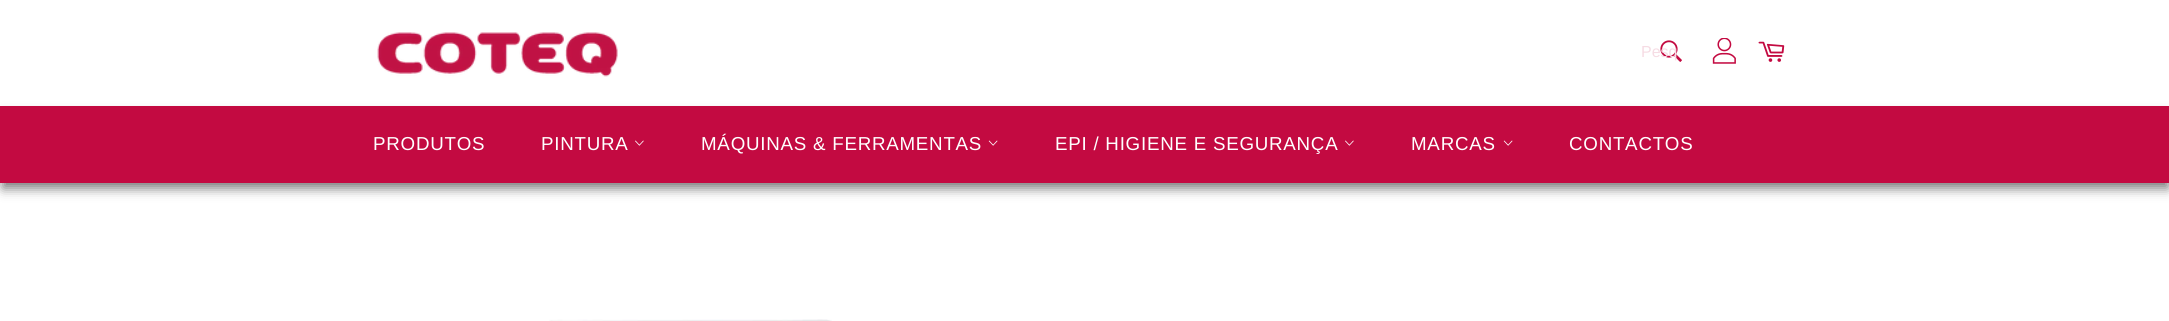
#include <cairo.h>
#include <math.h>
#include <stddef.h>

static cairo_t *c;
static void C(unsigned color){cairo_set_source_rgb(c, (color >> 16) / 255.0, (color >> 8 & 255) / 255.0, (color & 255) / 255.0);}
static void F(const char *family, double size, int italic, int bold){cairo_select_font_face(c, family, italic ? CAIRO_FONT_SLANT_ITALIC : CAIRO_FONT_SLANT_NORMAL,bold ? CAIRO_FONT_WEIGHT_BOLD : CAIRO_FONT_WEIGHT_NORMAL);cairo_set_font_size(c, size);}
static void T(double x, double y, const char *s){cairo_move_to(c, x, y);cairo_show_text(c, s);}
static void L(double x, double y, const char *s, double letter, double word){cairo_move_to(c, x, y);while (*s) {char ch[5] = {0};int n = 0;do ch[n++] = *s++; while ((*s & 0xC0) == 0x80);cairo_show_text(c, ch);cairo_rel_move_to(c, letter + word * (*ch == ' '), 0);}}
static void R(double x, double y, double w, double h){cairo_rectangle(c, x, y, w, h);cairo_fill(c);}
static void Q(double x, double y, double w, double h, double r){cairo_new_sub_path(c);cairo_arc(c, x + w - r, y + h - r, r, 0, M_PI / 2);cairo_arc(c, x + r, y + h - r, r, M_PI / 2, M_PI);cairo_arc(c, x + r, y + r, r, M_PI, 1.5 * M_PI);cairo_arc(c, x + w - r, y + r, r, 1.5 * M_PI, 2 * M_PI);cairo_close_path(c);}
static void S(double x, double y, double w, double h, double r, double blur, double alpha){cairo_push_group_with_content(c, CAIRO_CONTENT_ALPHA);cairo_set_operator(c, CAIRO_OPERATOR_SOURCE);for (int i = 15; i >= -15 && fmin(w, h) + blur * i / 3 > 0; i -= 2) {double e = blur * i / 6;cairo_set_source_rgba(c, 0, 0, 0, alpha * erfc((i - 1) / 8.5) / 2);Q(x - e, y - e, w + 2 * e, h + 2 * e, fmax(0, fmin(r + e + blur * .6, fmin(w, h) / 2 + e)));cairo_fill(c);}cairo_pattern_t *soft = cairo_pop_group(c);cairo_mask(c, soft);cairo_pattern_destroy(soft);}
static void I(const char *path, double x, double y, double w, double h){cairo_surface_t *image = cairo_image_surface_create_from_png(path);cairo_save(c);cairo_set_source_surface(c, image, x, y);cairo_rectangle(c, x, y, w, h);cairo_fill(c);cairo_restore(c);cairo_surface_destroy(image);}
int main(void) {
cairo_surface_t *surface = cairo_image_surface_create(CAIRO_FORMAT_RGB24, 2169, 321);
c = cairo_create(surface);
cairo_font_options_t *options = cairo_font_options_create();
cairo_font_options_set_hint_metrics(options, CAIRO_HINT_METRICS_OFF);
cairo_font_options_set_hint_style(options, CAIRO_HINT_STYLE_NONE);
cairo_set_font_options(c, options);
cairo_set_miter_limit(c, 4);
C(0xffffff);
cairo_paint(c);
I("1.png",377,32,241,45);
I("2.png",1660,40,22,22);
F("Liberation Sans",16,0,0);
C(0xf6dce4);
T(1641,57,"Pesq");
I("3.png",1712,38,24,26);
I("4.png",1758,41,27,21);
C(0x000000);
S(3,116,2165,72,0,6,.55);
C(0xc30a41);
R(0,106,2169,77);
F("Liberation Sans",18.75,0,0);
C(0xffffff);
L(373,150,"PRODUTOS",.75,0);
L(541,150,"PINTURA",.75,0);
I("5.png",635,140,9,6);
L(701,150,"MÁQUINAS & FERRAMENTAS",.75,0);
I("6.png",988,140,10,6);
L(1055,150,"EPI / HIGIENE E SEGURANÇA",.75,0);
I("5.png",1345,140,9,6);
L(1411,150,"MARCAS",.75,0);
I("6.png",1503,140,10,6);
L(1569,150,"CONTACTOS",.75,0);
I("7.png",549,319,283,2);
cairo_surface_write_to_png(surface, "o.png");
cairo_font_options_destroy(options);
cairo_destroy(c);
cairo_surface_destroy(surface);
return 0;
}
